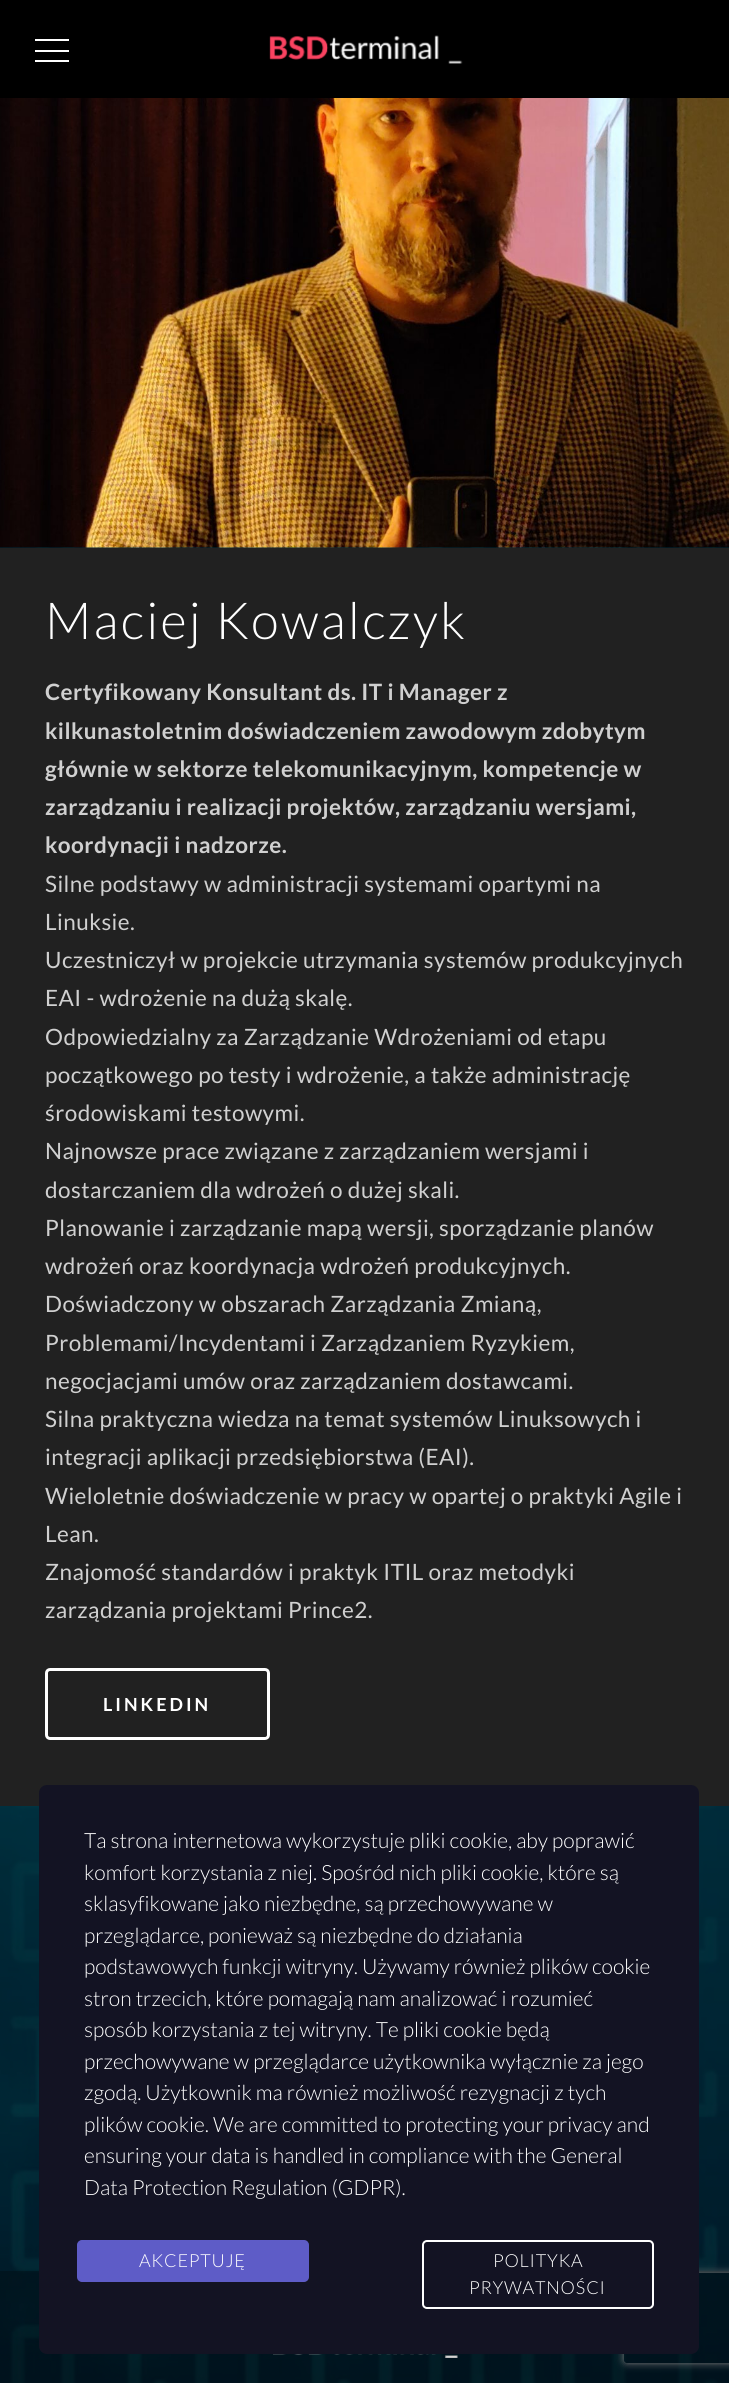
#include <cairo.h>
#include <math.h>
#include <stddef.h>

static cairo_t *c;
static void C(unsigned color){cairo_set_source_rgb(c, (color >> 16) / 255.0, (color >> 8 & 255) / 255.0, (color & 255) / 255.0);}
static void F(const char *family, double size, int italic, int bold){cairo_select_font_face(c, family, italic ? CAIRO_FONT_SLANT_ITALIC : CAIRO_FONT_SLANT_NORMAL,bold ? CAIRO_FONT_WEIGHT_BOLD : CAIRO_FONT_WEIGHT_NORMAL);cairo_set_font_size(c, size);}
static void T(double x, double y, const char *s){cairo_move_to(c, x, y);cairo_show_text(c, s);}
static void L(double x, double y, const char *s, double letter, double word){cairo_move_to(c, x, y);while (*s) {char ch[5] = {0};int n = 0;do ch[n++] = *s++; while ((*s & 0xC0) == 0x80);cairo_show_text(c, ch);cairo_rel_move_to(c, letter + word * (*ch == ' '), 0);}}
static void R(double x, double y, double w, double h){cairo_rectangle(c, x, y, w, h);cairo_fill(c);}
static void Q(double x, double y, double w, double h, double r){cairo_new_sub_path(c);cairo_arc(c, x + w - r, y + h - r, r, 0, M_PI / 2);cairo_arc(c, x + r, y + h - r, r, M_PI / 2, M_PI);cairo_arc(c, x + r, y + r, r, M_PI, 1.5 * M_PI);cairo_arc(c, x + w - r, y + r, r, 1.5 * M_PI, 2 * M_PI);cairo_close_path(c);}
static void S(double x, double y, double w, double h, double r, double blur, double alpha){cairo_push_group_with_content(c, CAIRO_CONTENT_ALPHA);cairo_set_operator(c, CAIRO_OPERATOR_SOURCE);for (int i = 15; i >= -15 && fmin(w, h) + blur * i / 3 > 0; i -= 2) {double e = blur * i / 6;cairo_set_source_rgba(c, 0, 0, 0, alpha * erfc((i - 1) / 8.5) / 2);Q(x - e, y - e, w + 2 * e, h + 2 * e, fmax(0, fmin(r + e + blur * .6, fmin(w, h) / 2 + e)));cairo_fill(c);}cairo_pattern_t *soft = cairo_pop_group(c);cairo_mask(c, soft);cairo_pattern_destroy(soft);}
static void I(const char *path, double x, double y, double w, double h){cairo_surface_t *image = cairo_image_surface_create_from_png(path);cairo_save(c);cairo_set_source_surface(c, image, x, y);cairo_rectangle(c, x, y, w, h);cairo_fill(c);cairo_restore(c);cairo_surface_destroy(image);}
int main(void) {
cairo_surface_t *surface = cairo_image_surface_create(CAIRO_FORMAT_RGB24, 729, 2383);
c = cairo_create(surface);
cairo_font_options_t *options = cairo_font_options_create();
cairo_font_options_set_hint_metrics(options, CAIRO_HINT_METRICS_OFF);
cairo_font_options_set_hint_style(options, CAIRO_HINT_STYLE_NONE);
cairo_set_font_options(c, options);
cairo_set_miter_limit(c, 4);
C(0xffffff);
cairo_paint(c);
C(0x000000);
R(0,0,729,98);
I("1.png",269,35,194,29);
C(0xffffff);
R(35,50,34,2);
R(35,39,34,2);
R(35,60,34,2);
I("2.png",0,547,729,1836);
I("3.png",0,98,729,450);
C(0x212121);
R(0,548,729,1258);
F("Lato Light",51,0,0);
C(0xffffff);
L(45,639,"Maciej Kowalczyk",2.25,0);
F("Lato",22.5,0,1);
C(0xd0d0d0);
L(45,700,"Certyfikowany Konsultant ds. IT i Manager z",.45,0);
L(45,739,"kilkunastoletnim doświadczeniem zawodowym zdobytym",.45,0);
L(45,777,"głównie w sektorze telekomunikacyjnym, kompetencje w",.45,0);
L(45,815,"zarządzaniu i realizacji projektów, zarządzaniu wersjami,",.45,0);
L(45,853,"koordynacji i nadzorze.",.45,0);
F("Lato",22.5,0,0);
L(45,892,"Silne podstawy w administracji systemami opartymi na",.45,0);
L(45,930,"Linuksie.",.45,0);
L(45,968,"Uczestniczył w projekcie utrzymania systemów produkcyjnych",.45,0);
L(45,1006,"EAI - wdrożenie na dużą skalę.",.45,0);
L(45,1045,"Odpowiedzialny za Zarządzanie Wdrożeniami od etapu",.45,0);
L(45,1083,"początkowego po testy i wdrożenie, a także administrację",.45,0);
L(45,1121,"środowiskami testowymi.",.45,0);
L(45,1159,"Najnowsze prace związane z zarządzaniem wersjami i",.45,0);
L(45,1198,"dostarczaniem dla wdrożeń o dużej skali.",.45,0);
L(45,1236,"Planowanie i zarządzanie mapą wersji, sporządzanie planów",.45,0);
L(45,1274,"wdrożeń oraz koordynacja wdrożeń produkcyjnych.",.45,0);
L(45,1312,"Doświadczony w obszarach Zarządzania Zmianą,",.45,0);
L(45,1351,"Problemami/Incydentami i Zarządzaniem Ryzykiem,",.45,0);
L(45,1389,"negocjacjami umów oraz zarządzaniem dostawcami.",.45,0);
L(45,1427,"Silna praktyczna wiedza na temat systemów Linuksowych i",.45,0);
L(45,1465,"integracji aplikacji przedsiębiorstwa (EAI).",.45,0);
L(45,1504,"Wieloletnie doświadczenie w pracy w opartej o praktyki Agile i",.45,0);
L(45,1542,"Lean.",.45,0);
L(45,1580,"Znajomość standardów i praktyk ITIL oraz metodyki",.45,0);
L(45,1618,"zarządzania projektami Prince2.",.45,0);
Q(46.5,1669.5,222,69,3.5);
C(0xffffff);
cairo_set_line_width(c,3);
cairo_stroke(c);
F("Lato",18,0,1);
L(103,1711,"LINKEDIN",3,0);
cairo_set_source_rgba(c,0,0,0,0.7);
R(0,2271,729,112);
I("4.png",273,2354,185,4);
cairo_save(c);
cairo_set_fill_rule(c,CAIRO_FILL_RULE_EVEN_ODD);
cairo_new_path(c);
cairo_move_to(c,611,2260);
cairo_line_to(c,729,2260);
cairo_line_to(c,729,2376);
cairo_line_to(c,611,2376);
cairo_close_path(c);
cairo_move_to(c,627,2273);
cairo_line_to(c,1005,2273);
cairo_curve_to(c,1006.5,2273,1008,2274.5,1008,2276);
cairo_line_to(c,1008,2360);
cairo_curve_to(c,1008,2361.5,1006.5,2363,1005,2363);
cairo_line_to(c,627,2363);
cairo_curve_to(c,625.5,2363,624,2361.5,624,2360);
cairo_line_to(c,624,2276);
cairo_curve_to(c,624,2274.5,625.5,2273,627,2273);
cairo_close_path(c);
cairo_clip(c);
C(0x808080);
S(624,2273,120,90,3,4,1);
cairo_restore(c);
C(0x131323);
Q(39,1785,660,569,8);
cairo_fill(c);
F("Lato Light",21,0,0);
C(0xffffff);
T(84,1848,"Ta strona internetowa wykorzystuje pliki cookie, aby poprawić");
T(84,1880,"komfort korzystania z niej. Spośród nich pliki cookie, które są");
T(84,1911,"sklasyfikowane jako niezbędne, są przechowywane w");
T(84,1943,"przeglądarce, ponieważ są niezbędne do działania");
T(84,1974,"podstawowych funkcji witryny. Używamy również plików cookie");
T(84,2006,"stron trzecich, które pomagają nam analizować i rozumieć");
T(84,2037,"sposób korzystania z tej witryny. Te pliki cookie będą");
T(84,2069,"przechowywane w przeglądarce użytkownika wyłącznie za jego");
T(84,2100,"zgodą. Użytkownik ma również możliwość rezygnacji z tych");
T(84,2132,"plików cookie. We are committed to protecting your privacy and");
T(84,2163,"ensuring your data is handled in compliance with the General");
T(84,2195,"Data Protection Regulation (GDPR).");
C(0x5e5cc7);
Q(78,2241,230,40,4);
cairo_fill_preserve(c);
cairo_set_line_width(c,2);
cairo_stroke(c);
F("Lato Light",18,0,0);
C(0xffffff);
L(139,2267,"AKCEPTUJĘ",.75,0);
Q(423,2241,230,67,4);
cairo_stroke(c);
L(493,2267,"POLITYKA",.75,0);
L(469,2294,"PRYWATNOŚCI",.75,0);
cairo_surface_write_to_png(surface, "o.png");
cairo_font_options_destroy(options);
cairo_destroy(c);
cairo_surface_destroy(surface);
return 0;
}
